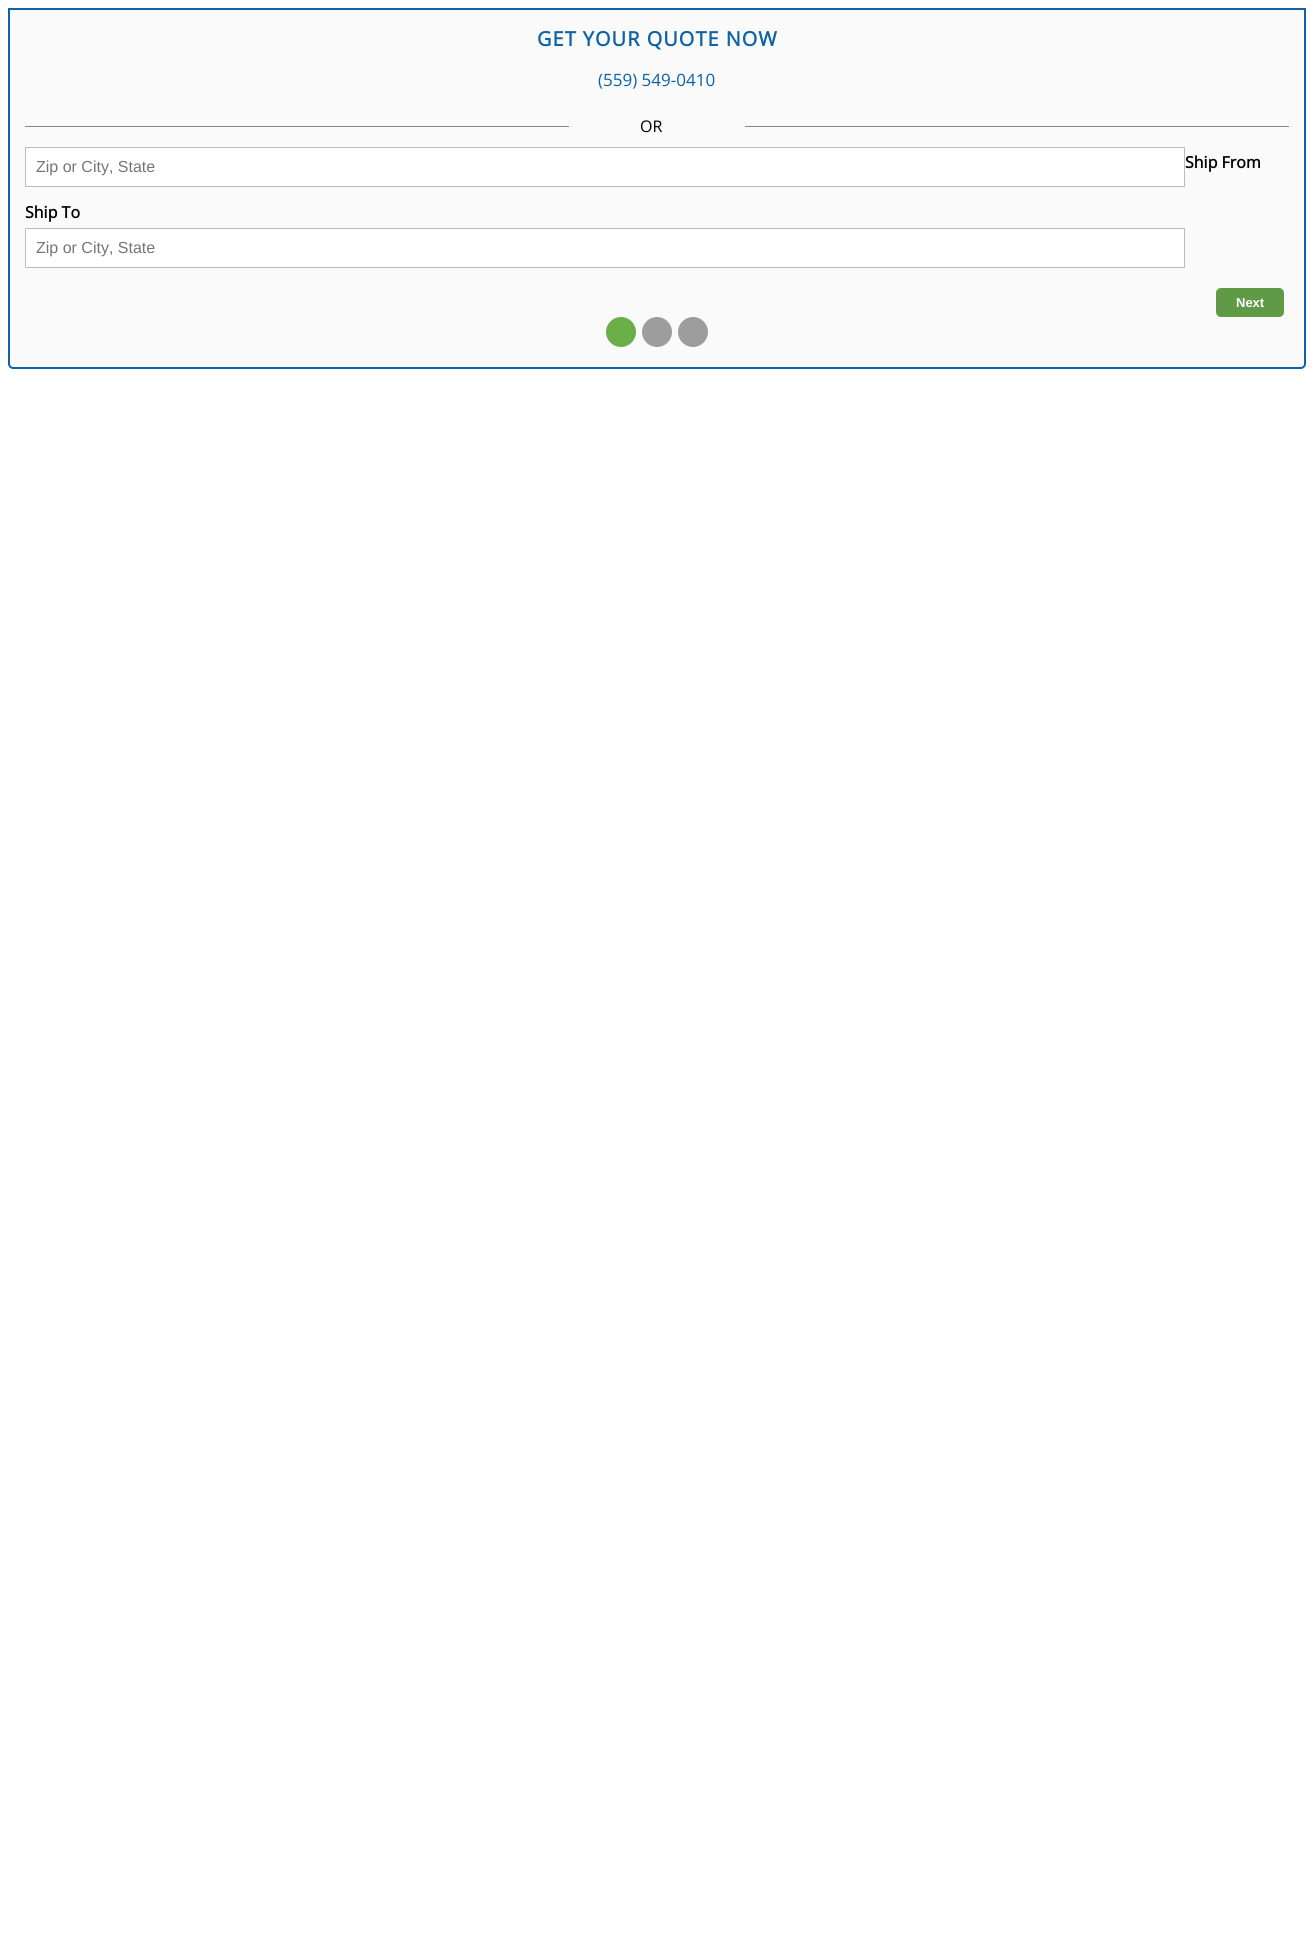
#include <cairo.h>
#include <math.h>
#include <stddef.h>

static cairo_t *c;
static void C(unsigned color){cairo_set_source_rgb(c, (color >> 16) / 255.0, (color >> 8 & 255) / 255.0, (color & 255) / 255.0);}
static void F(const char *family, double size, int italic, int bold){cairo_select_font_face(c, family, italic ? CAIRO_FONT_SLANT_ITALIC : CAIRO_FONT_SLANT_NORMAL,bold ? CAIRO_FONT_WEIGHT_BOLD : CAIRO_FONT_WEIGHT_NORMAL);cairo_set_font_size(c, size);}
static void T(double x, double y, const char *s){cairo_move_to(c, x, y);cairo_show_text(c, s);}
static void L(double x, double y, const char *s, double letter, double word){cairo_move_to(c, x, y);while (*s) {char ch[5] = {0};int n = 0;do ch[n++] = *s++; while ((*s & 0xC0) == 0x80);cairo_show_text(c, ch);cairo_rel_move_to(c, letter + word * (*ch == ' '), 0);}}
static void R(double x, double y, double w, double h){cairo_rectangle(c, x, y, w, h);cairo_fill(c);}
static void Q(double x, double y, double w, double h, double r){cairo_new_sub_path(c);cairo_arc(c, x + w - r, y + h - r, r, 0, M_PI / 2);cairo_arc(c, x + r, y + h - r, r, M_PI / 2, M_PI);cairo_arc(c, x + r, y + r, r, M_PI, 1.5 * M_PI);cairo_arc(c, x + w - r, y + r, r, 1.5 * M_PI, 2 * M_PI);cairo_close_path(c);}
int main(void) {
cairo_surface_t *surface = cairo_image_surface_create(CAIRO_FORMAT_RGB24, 1314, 1936);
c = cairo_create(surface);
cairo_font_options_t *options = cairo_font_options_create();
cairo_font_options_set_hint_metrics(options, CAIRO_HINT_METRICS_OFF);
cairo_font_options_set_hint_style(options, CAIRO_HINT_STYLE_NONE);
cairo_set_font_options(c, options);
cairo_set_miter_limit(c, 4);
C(0xffffff);
cairo_paint(c);
C(0xfafafa);
cairo_new_path(c);
cairo_move_to(c,9,9);
cairo_line_to(c,1305,9);
cairo_line_to(c,1305,364);
cairo_curve_to(c,1305,366,1303,368,1301,368);
cairo_line_to(c,13,368);
cairo_curve_to(c,11,368,9,366,9,364);
cairo_close_path(c);
cairo_fill_preserve(c);
C(0x0e62a6);
cairo_stroke(c);
F("Open Sans",20,0,1);
L(537,46,"GET YOUR QUOTE NOW",1,0);
F("Open Sans",17,0,0);
T(598,86,"(559) 549-0410");
C(0x7e8996);
R(25,126,544,1);
F("Open Sans",16,0,0);
C(0x000000);
T(640,132,"OR");
C(0x7e8996);
R(745,126,544,1);
C(0xffffff);
cairo_rectangle(c,25.5,147.5,1159,39);
cairo_fill_preserve(c);
C(0xbcbcbc);
cairo_set_line_width(c,1);
cairo_stroke(c);
F("Liberation Sans",16,0,0);
C(0x757575);
T(36,172,"Zip or City, State");
F("Open Sans",16,0,1);
C(0x000000);
T(1185,168,"Ship From");
T(25,218,"Ship To");
C(0xffffff);
cairo_rectangle(c,25.5,228.5,1159,39);
cairo_fill_preserve(c);
C(0xbcbcbc);
cairo_stroke(c);
F("Liberation Sans",16,0,0);
C(0x757575);
T(36,253,"Zip or City, State");
C(0x609a47);
Q(1216,288,68,29,5);
cairo_fill(c);
F("Liberation Sans",13,0,1);
C(0xffffff);
T(1236,307,"Next");
C(0x6aae47);
cairo_new_path(c);
cairo_arc(c,621,332,15,0,2 * M_PI);
cairo_fill(c);
C(0x9d9d9d);
cairo_arc(c,657,332,15,0,2 * M_PI);
cairo_fill(c);
cairo_arc(c,693,332,15,0,2 * M_PI);
cairo_fill(c);
cairo_surface_write_to_png(surface, "o.png");
cairo_font_options_destroy(options);
cairo_destroy(c);
cairo_surface_destroy(surface);
return 0;
}
